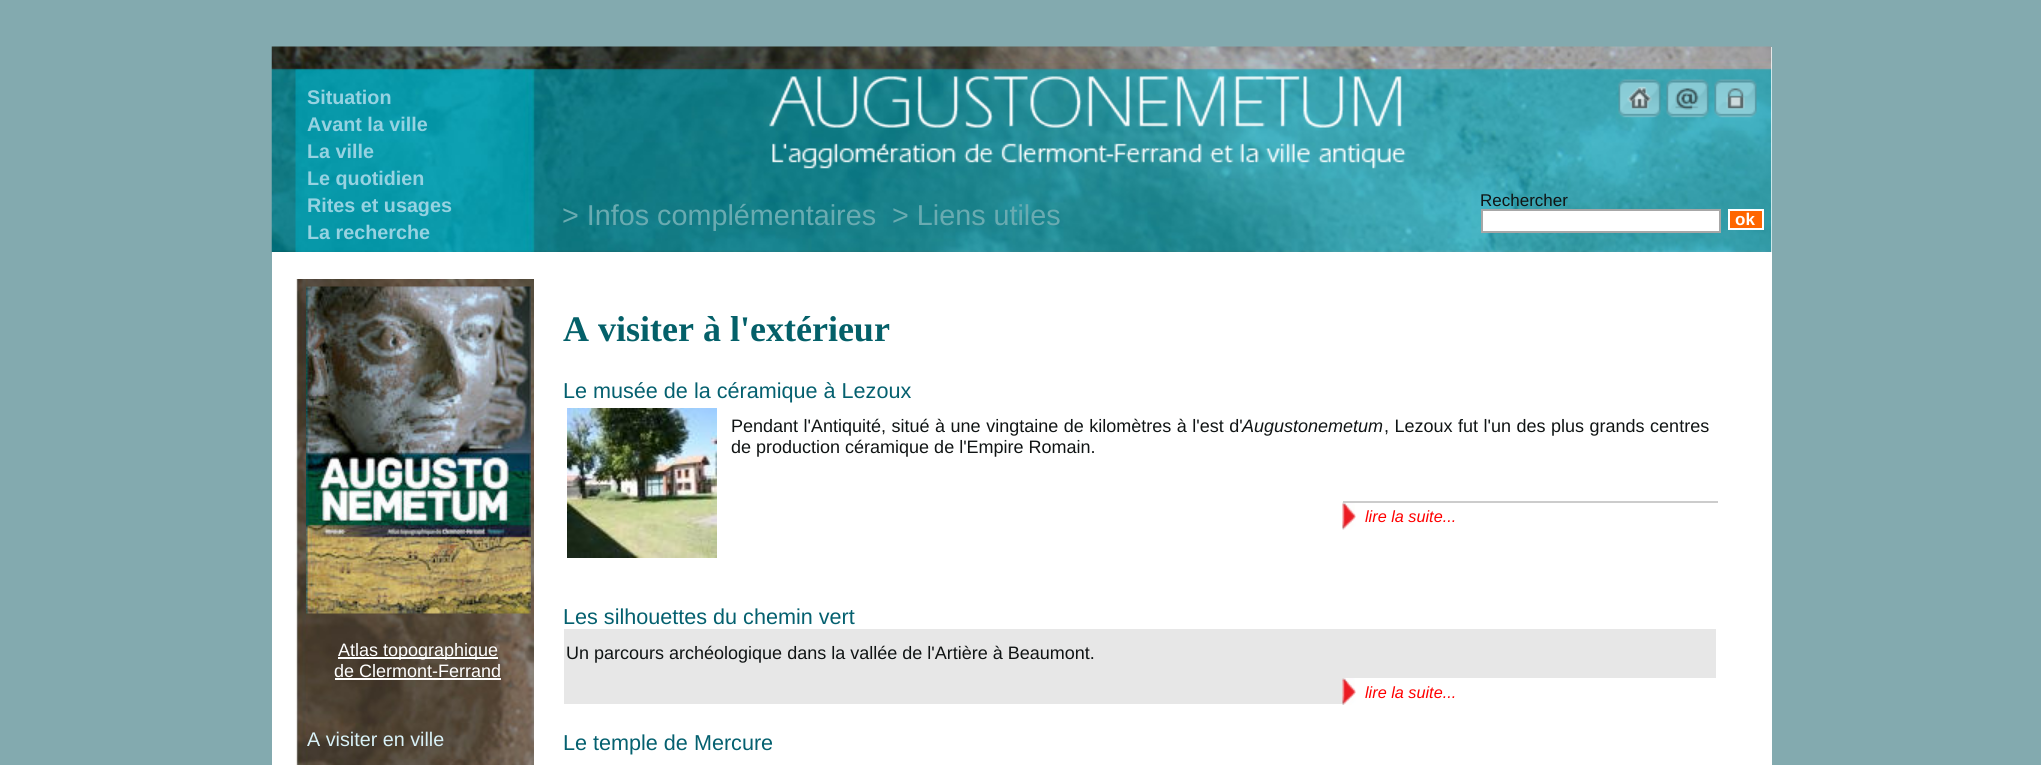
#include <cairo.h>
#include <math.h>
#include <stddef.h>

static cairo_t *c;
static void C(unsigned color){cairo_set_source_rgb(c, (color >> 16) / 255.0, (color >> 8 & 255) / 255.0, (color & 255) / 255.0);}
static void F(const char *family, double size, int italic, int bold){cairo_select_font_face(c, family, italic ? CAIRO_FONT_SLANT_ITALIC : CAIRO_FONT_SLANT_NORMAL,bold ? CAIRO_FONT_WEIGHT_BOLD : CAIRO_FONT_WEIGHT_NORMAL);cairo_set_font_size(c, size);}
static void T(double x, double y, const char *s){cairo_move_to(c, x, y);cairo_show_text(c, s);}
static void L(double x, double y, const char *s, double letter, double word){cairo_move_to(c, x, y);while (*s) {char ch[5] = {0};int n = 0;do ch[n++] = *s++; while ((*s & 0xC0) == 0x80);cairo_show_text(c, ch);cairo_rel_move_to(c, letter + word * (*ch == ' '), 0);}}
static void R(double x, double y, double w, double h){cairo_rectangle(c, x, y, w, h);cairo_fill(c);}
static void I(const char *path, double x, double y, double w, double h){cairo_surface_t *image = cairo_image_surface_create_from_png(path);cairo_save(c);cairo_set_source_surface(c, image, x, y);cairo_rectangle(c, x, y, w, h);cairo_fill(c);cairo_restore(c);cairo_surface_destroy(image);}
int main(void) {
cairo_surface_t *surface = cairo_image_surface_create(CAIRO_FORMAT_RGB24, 2041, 765);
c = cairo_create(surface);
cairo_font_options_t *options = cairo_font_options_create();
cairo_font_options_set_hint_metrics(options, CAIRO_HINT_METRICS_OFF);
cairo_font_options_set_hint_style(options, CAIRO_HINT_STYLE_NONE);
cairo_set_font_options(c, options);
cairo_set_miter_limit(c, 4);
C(0x83aaaf);
cairo_paint(c);
C(0xffffff);
R(272,47,1500,718);
I("1.png",271,46,1501,206);
F("Liberation Sans",19.75,0,1);
C(0x96d2e1);
T(307,104,"Situation");
T(307,131,"Avant la ville");
T(307,158,"La ville");
T(307,185,"Le quotidien");
T(307,212,"Rites et usages");
T(307,239,"La recherche");
I("2.png",769,76,637,93);
I("3.png",1618,79,43,39);
I("4.png",1666,79,43,39);
I("5.png",1714,79,43,39);
F("Liberation Sans",28.75,0,0);
C(0x6aabb1);
T(562,225,"> Infos complémentaires");
T(892,225,"> Liens utiles");
F("Liberation Sans",17,0,0);
C(0x101414);
T(1480,206,"Rechercher");
C(0xffffff);
cairo_rectangle(c,1482,210,238,22);
cairo_fill_preserve(c);
C(0xa7a7a7);
cairo_stroke(c);
C(0xff6600);
cairo_rectangle(c,1729,210,34,19);
cairo_fill_preserve(c);
C(0xffffff);
cairo_stroke(c);
F("Liberation Sans",17,0,1);
T(1735,225,"ok");
I("6.png",295,279,239,486);
I("7.png",306,286,225,328);
R(338,657,160,2);
F("Liberation Sans",18,0,0);
T(338,656,"Atlas topographique");
T(334,677,"de Clermont-Ferrand");
R(335,678,166,2);
F("Liberation Sans",19.75,0,0);
C(0xd8f1f7);
T(307,746,"A visiter en ville");
F("Liberation Serif",36,0,1);
C(0x046069);
T(563,341,"A visiter à l'extérieur");
F("Liberation Sans",21.6,0,0);
C(0x04606f);
T(563,398,"Le musée de la céramique à Lezoux");
I("8.png",567,408,150,150);
F("Liberation Sans",18,0,0);
C(0x101414);
L(731,432,"Pendant l'Antiquité, situé à une vingtaine de kilomètres à l'est d'",0,.5);
F("Liberation Sans",18,1,0);
T(1242,432,"Augustonemetum");
F("Liberation Sans",18,0,0);
L(1384,432,", Lezoux fut l'un des plus grands centres",0,.5);
T(731,453,"de production céramique de l'Empire Romain.");
I("9.png",1342,502,14,28);
C(0xcccccc);
R(1343,501,375,2);
F("Liberation Sans",16.25,1,0);
C(0xff0000);
T(1365,522,"lire la suite...");
F("Liberation Sans",21.6,0,0);
C(0x04606f);
T(563,624,"Les silhouettes du chemin vert");
C(0xe7e7e7);
R(564,629,1152,75);
F("Liberation Sans",18,0,0);
C(0x101414);
T(566,659,"Un parcours archéologique dans la vallée de l'Artière à Beaumont.");
C(0xffffff);
R(1356,678,360,26);
I("10.png",1342,678,14,27);
F("Liberation Sans",16.25,1,0);
C(0xff0000);
T(1365,698,"lire la suite...");
F("Liberation Sans",21.6,0,0);
C(0x04606f);
T(563,750,"Le temple de Mercure");
cairo_surface_write_to_png(surface, "o.png");
cairo_font_options_destroy(options);
cairo_destroy(c);
cairo_surface_destroy(surface);
return 0;
}
